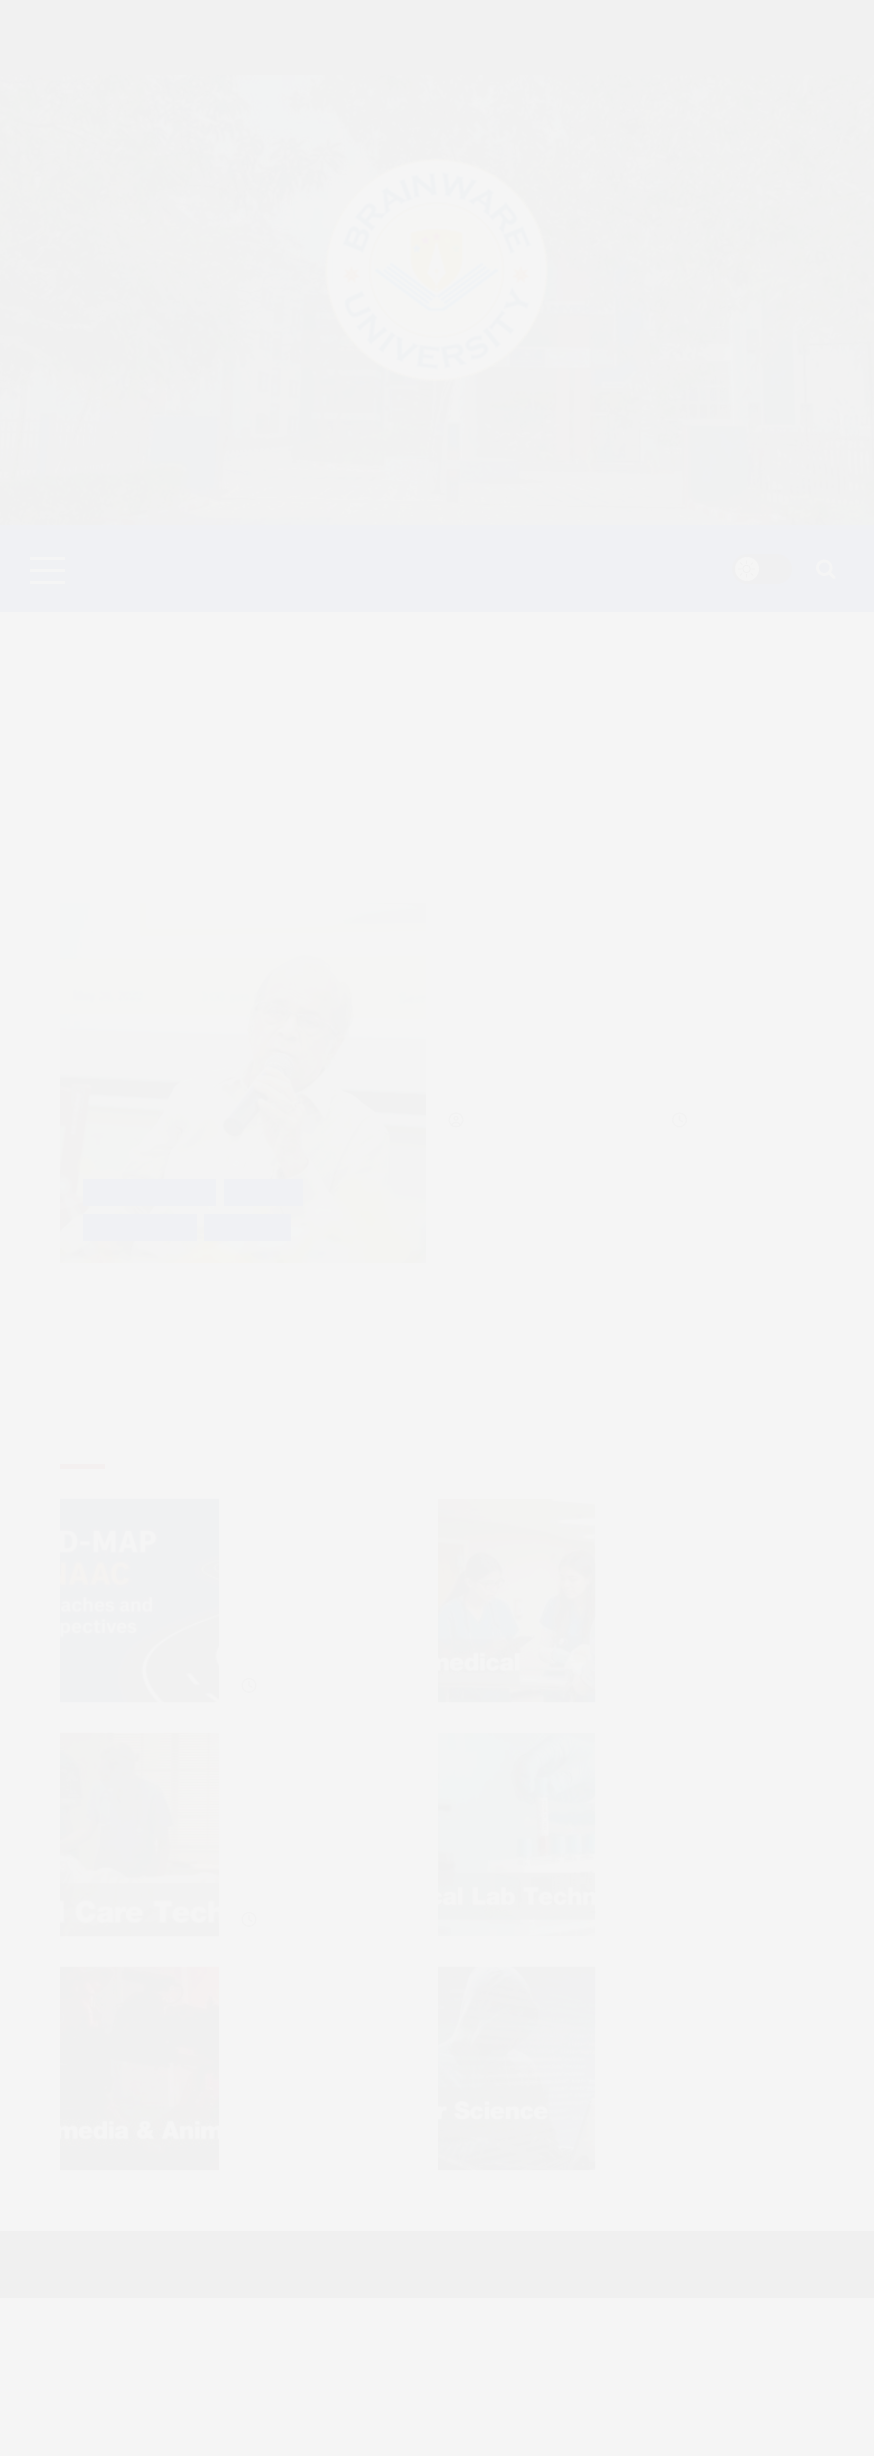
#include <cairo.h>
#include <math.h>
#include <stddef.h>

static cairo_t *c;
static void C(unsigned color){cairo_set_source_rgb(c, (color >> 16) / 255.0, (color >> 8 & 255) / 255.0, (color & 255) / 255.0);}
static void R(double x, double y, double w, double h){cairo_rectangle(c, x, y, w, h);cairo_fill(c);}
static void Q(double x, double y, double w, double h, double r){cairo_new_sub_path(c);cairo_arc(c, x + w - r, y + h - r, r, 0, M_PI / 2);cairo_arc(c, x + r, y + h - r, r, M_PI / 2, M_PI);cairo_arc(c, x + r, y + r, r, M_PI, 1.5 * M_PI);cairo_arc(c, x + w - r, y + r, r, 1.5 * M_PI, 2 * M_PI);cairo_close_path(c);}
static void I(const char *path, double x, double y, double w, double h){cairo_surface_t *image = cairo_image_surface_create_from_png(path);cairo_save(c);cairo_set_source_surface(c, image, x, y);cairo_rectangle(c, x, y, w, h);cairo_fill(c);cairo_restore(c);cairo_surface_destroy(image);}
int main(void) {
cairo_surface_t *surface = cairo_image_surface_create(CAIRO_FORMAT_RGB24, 874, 2456);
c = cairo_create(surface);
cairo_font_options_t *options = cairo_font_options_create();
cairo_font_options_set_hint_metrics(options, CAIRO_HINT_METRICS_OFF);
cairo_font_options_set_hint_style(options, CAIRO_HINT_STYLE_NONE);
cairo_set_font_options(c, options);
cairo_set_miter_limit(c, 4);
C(0xf5f5f5);
cairo_paint(c);
C(0xf1f1f1);
R(0,0,874,75);
I("1.png",0,75,874,450);
I("2.png",325,158,223,224);
C(0xf0f1f4);
R(0,525,874,87);
C(0xf5f5f5);
R(30,569,35,3);
R(30,557,35,3);
R(30,581,35,3);
C(0xf0f0f1);
Q(732,554,60,30,15);
cairo_fill(c);
C(0xf5f5f5);
cairo_arc(c,747,569,12,0,2 * M_PI);
cairo_fill(c);
I("3.png",738,560,17,18);
I("4.png",816,559,20,20);
I("5.png",60,903,366,360);
C(0xf0f1f4);
R(83,1179,133,27);
R(224,1179,79,27);
R(83,1214,114,27);
R(204,1214,87,27);
I("6.png",448,1112,16,16);
I("7.png",672,1112,15,16);
C(0xf4f0f0);
R(60,1464,45,5);
I("8.png",60,1498,159,205);
I("9.png",241,1678,16,15);
I("10.png",438,1498,158,205);
I("11.png",60,1732,159,205);
I("9.png",241,1912,16,15);
I("12.png",438,1732,158,205);
I("13.png",60,1966,159,205);
I("14.png",438,1966,158,205);
C(0xf0f0f0);
R(0,2231,874,67);
cairo_surface_write_to_png(surface, "o.png");
cairo_font_options_destroy(options);
cairo_destroy(c);
cairo_surface_destroy(surface);
return 0;
}
